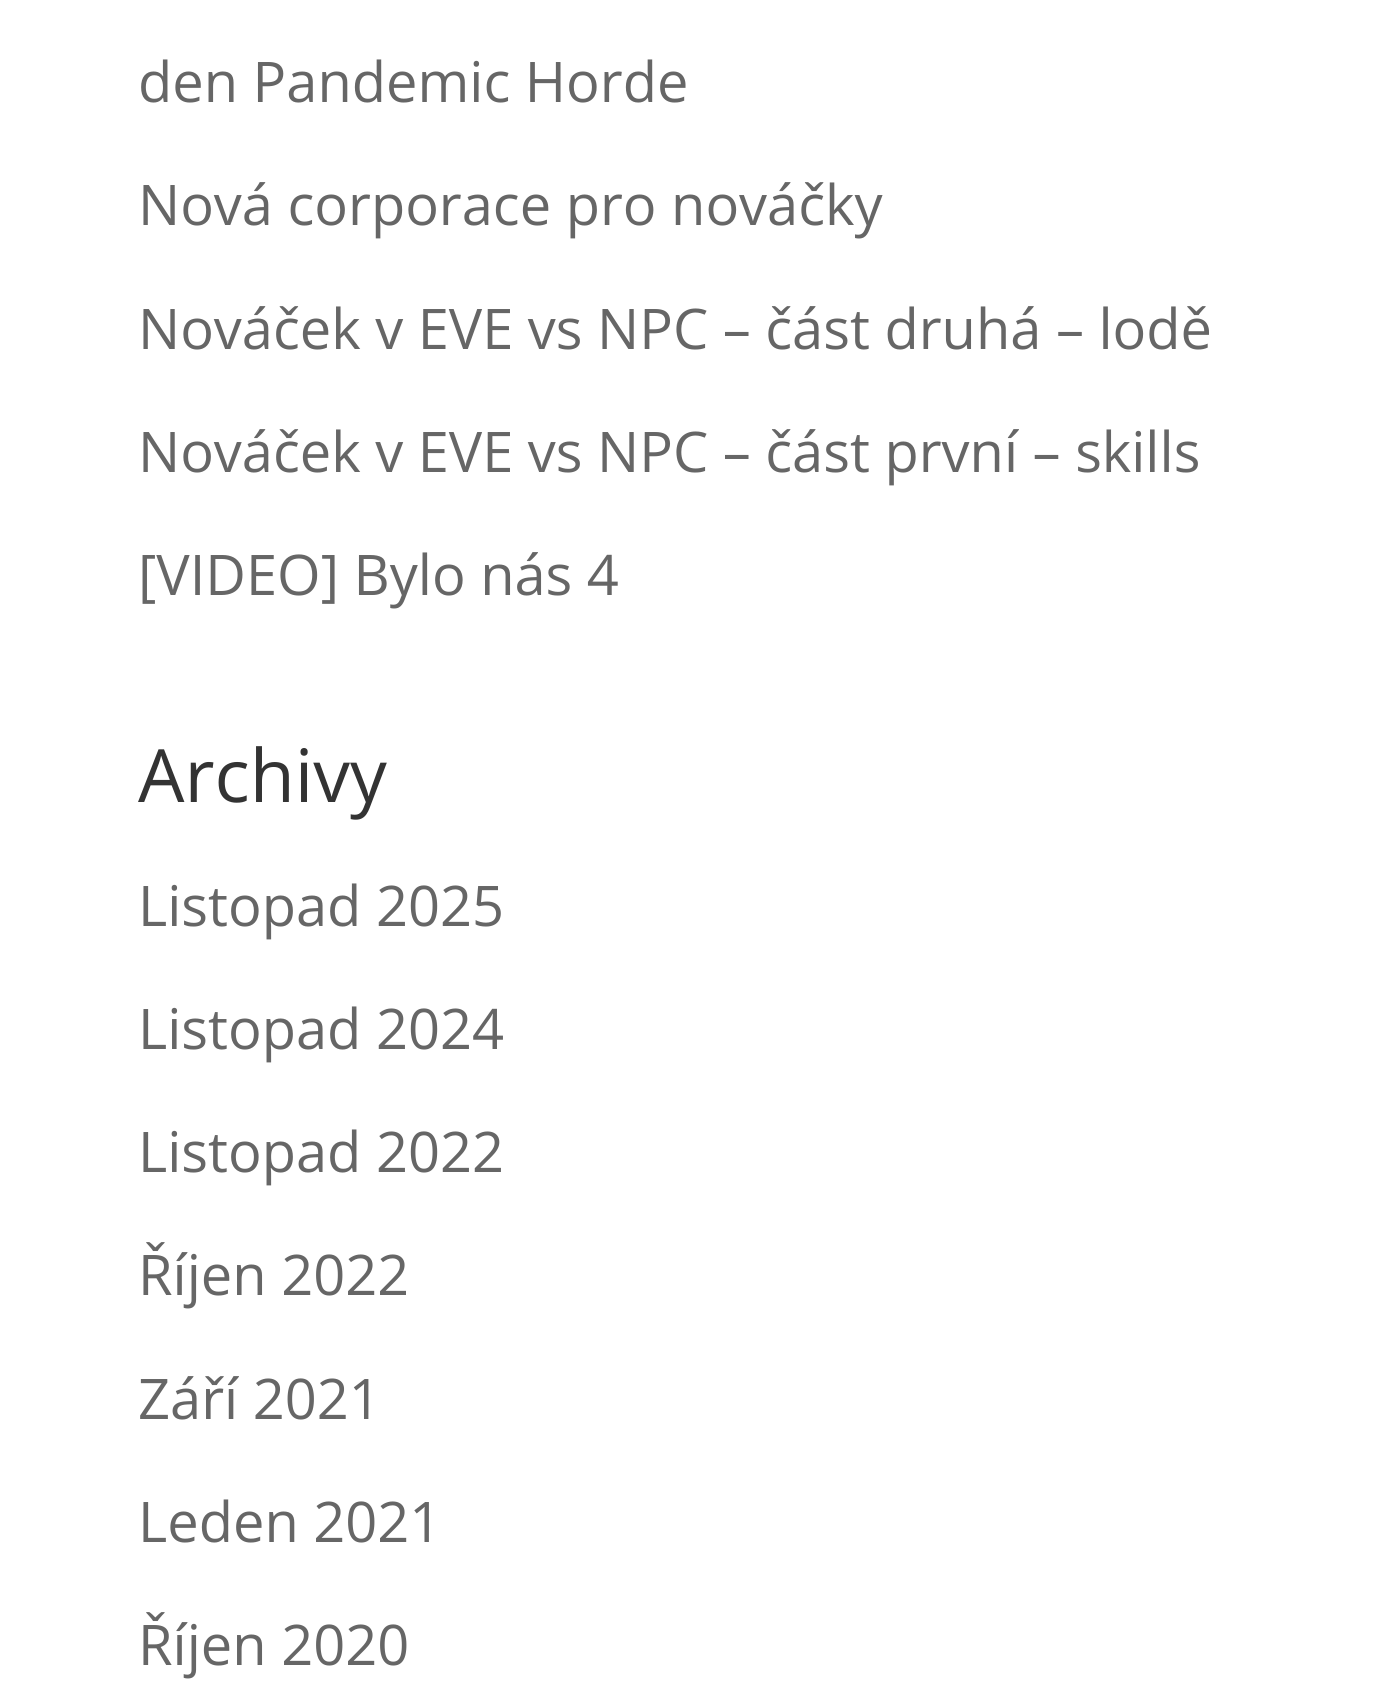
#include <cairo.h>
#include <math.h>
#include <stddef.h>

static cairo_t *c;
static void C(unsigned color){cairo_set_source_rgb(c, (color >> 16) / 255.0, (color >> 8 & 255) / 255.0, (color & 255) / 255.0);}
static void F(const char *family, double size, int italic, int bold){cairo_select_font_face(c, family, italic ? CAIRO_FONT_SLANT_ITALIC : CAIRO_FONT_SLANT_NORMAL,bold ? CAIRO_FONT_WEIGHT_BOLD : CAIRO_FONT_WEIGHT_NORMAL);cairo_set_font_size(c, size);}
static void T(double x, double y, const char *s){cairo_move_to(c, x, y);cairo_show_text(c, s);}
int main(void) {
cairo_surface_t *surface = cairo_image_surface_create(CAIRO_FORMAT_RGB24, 1382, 1700);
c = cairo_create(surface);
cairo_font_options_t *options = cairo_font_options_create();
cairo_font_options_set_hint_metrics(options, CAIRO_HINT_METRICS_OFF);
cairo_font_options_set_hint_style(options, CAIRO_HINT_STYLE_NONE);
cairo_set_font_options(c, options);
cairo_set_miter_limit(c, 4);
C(0xffffff);
cairo_paint(c);
F("Open Sans",56,0,0);
C(0x666666);
T(138,102,"den Pandemic Horde");
T(138,225,"Nová corporace pro nováčky");
T(138,349,"Nováček v EVE vs NPC – část druhá – lodě");
T(138,472,"Nováček v EVE vs NPC – část první – skills");
T(138,595,"[VIDEO] Bylo nás 4");
F("Open Sans",73.5,0,0);
C(0x333333);
T(138,802,"Archivy");
F("Open Sans",56,0,0);
C(0x666666);
T(138,926,"Listopad 2025");
T(138,1049,"Listopad 2024");
T(138,1172,"Listopad 2022");
T(138,1295,"Říjen 2022");
T(138,1419,"Září 2021");
T(138,1542,"Leden 2021");
T(138,1665,"Říjen 2020");
cairo_surface_write_to_png(surface, "o.png");
cairo_font_options_destroy(options);
cairo_destroy(c);
cairo_surface_destroy(surface);
return 0;
}
